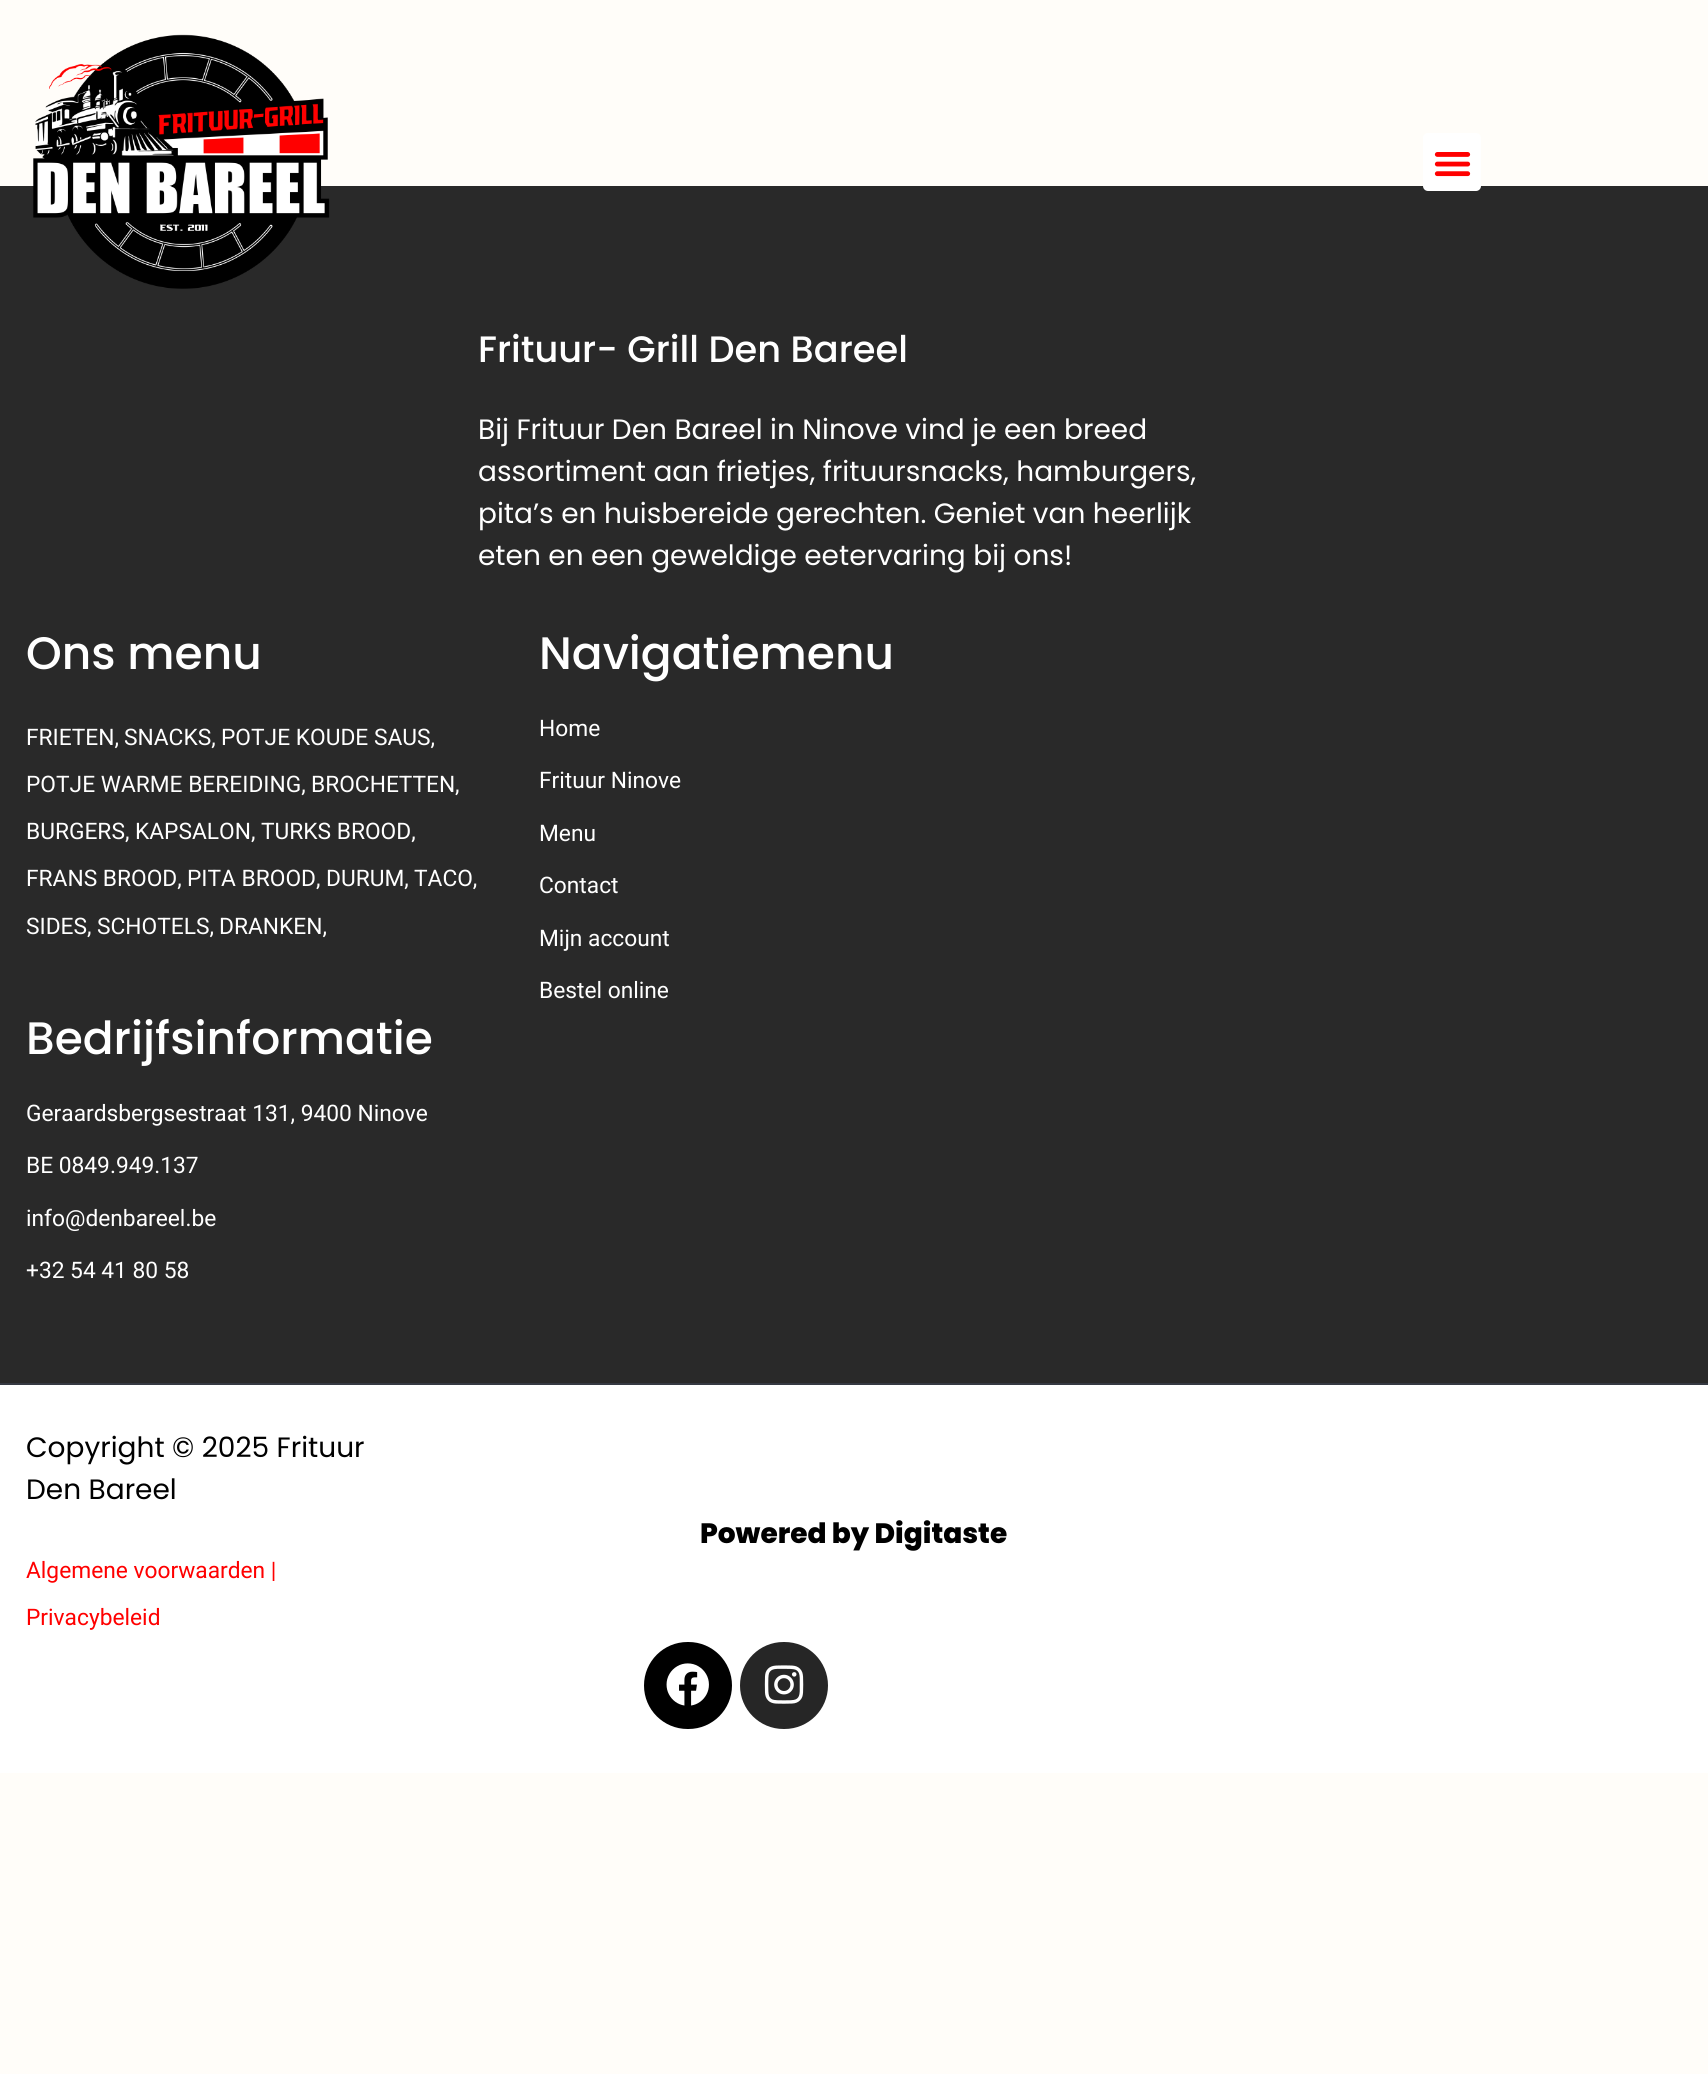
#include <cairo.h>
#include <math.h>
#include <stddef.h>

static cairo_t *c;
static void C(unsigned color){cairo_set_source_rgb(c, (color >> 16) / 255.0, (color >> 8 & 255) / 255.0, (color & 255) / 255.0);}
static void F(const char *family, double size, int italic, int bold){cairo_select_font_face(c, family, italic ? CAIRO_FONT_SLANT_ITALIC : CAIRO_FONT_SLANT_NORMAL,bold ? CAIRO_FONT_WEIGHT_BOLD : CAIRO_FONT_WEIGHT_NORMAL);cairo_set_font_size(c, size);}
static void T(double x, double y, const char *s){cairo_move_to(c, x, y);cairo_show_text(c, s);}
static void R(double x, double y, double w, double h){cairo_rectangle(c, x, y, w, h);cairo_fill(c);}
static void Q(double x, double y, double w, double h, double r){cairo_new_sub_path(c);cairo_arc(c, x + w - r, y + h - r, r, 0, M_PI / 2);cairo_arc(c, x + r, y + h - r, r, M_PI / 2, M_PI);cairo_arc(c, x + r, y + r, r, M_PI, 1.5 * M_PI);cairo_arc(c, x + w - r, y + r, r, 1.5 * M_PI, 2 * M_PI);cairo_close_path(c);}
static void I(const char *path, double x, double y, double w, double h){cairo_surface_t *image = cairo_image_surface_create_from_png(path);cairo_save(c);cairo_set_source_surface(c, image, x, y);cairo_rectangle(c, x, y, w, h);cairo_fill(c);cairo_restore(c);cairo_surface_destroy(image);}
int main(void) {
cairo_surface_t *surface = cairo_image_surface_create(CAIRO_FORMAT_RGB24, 1708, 2074);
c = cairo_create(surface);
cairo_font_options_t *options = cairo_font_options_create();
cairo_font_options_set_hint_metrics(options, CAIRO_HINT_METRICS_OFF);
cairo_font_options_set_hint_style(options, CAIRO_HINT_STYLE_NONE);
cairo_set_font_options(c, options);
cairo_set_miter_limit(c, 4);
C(0xfffdf9);
cairo_paint(c);
C(0x292929);
R(0,186,1708,1197);
I("1.png",33,34,297,255);
C(0xffffff);
Q(1423,133,58,58,5);
cairo_fill(c);
I("2.png",1434,152,37,25);
F("Poppins Medium",36.75,0,0);
T(478,362,"Frituur- Grill Den Bareel");
F("Poppins",28,0,0);
T(478,439,"Bij Frituur Den Bareel in Ninove vind je een breed");
T(478,481,"assortiment aan frietjes, frituursnacks, hamburgers,");
T(478,523,"pita’s en huisbereide gerechten. Geniet van heerlijk");
T(478,565,"eten en een geweldige eetervaring bij ons!");
F("Poppins Medium",45.5,0,0);
T(26,669,"Ons menu");
F("Roboto",22.75,0,0);
T(26,745,"FRIETEN,");
T(124,745,"SNACKS,");
T(221,745,"POTJE KOUDE SAUS,");
T(26,792,"POTJE WARME BEREIDING,");
T(311,792,"BROCHETTEN,");
T(26,839,"BURGERS,");
T(135,839,"KAPSALON,");
T(261,839,"TURKS BROOD,");
T(26,886,"FRANS BROOD,");
T(187,886,"PITA BROOD,");
T(326,886,"DURUM,");
T(414,886,"TACO,");
T(26,934,"SIDES,");
T(97,934,"SCHOTELS,");
T(219,934,"DRANKEN,");
F("Poppins Medium",45.5,0,0);
T(539,669,"Navigatiemenu");
F("Roboto",22.75,0,0);
T(539,736,"Home");
T(539,788,"Frituur Ninove");
T(539,841,"Menu");
T(539,893,"Contact");
T(539,946,"Mijn account");
T(539,998,"Bestel online");
F("Poppins Medium",45.5,0,0);
T(26,1054,"Bedrijfsinformatie");
F("Roboto",22.75,0,0);
T(26,1121,"Geraardsbergsestraat 131, 9400 Ninove");
T(26,1173,"BE 0849.949.137");
T(26,1226,"info@denbareel.be");
T(26,1278,"+32 54 41 80 58");
R(0,1385,1708,388);
C(0x353942);
R(0,1383,1708,2);
F("Poppins",28,0,0);
C(0x000000);
T(26,1457,"Copyright © 2025 Frituur");
T(26,1499,"Den Bareel");
F("Roboto",22.75,0,0);
C(0xff0000);
T(26,1578,"Algemene voorwaarden |");
T(26,1625,"Privacybeleid");
F("Poppins ExtraBold",28,0,0);
C(0x000000);
T(700,1543,"Powered by Digitaste");
Q(644,1642,88,87,43.5);
cairo_fill(c);
I("3.png",666,1663,43,43);
C(0x262626);
Q(740,1642,88,87,43.5);
cairo_fill(c);
I("4.png",764,1665,40,39);
cairo_surface_write_to_png(surface, "o.png");
cairo_font_options_destroy(options);
cairo_destroy(c);
cairo_surface_destroy(surface);
return 0;
}
